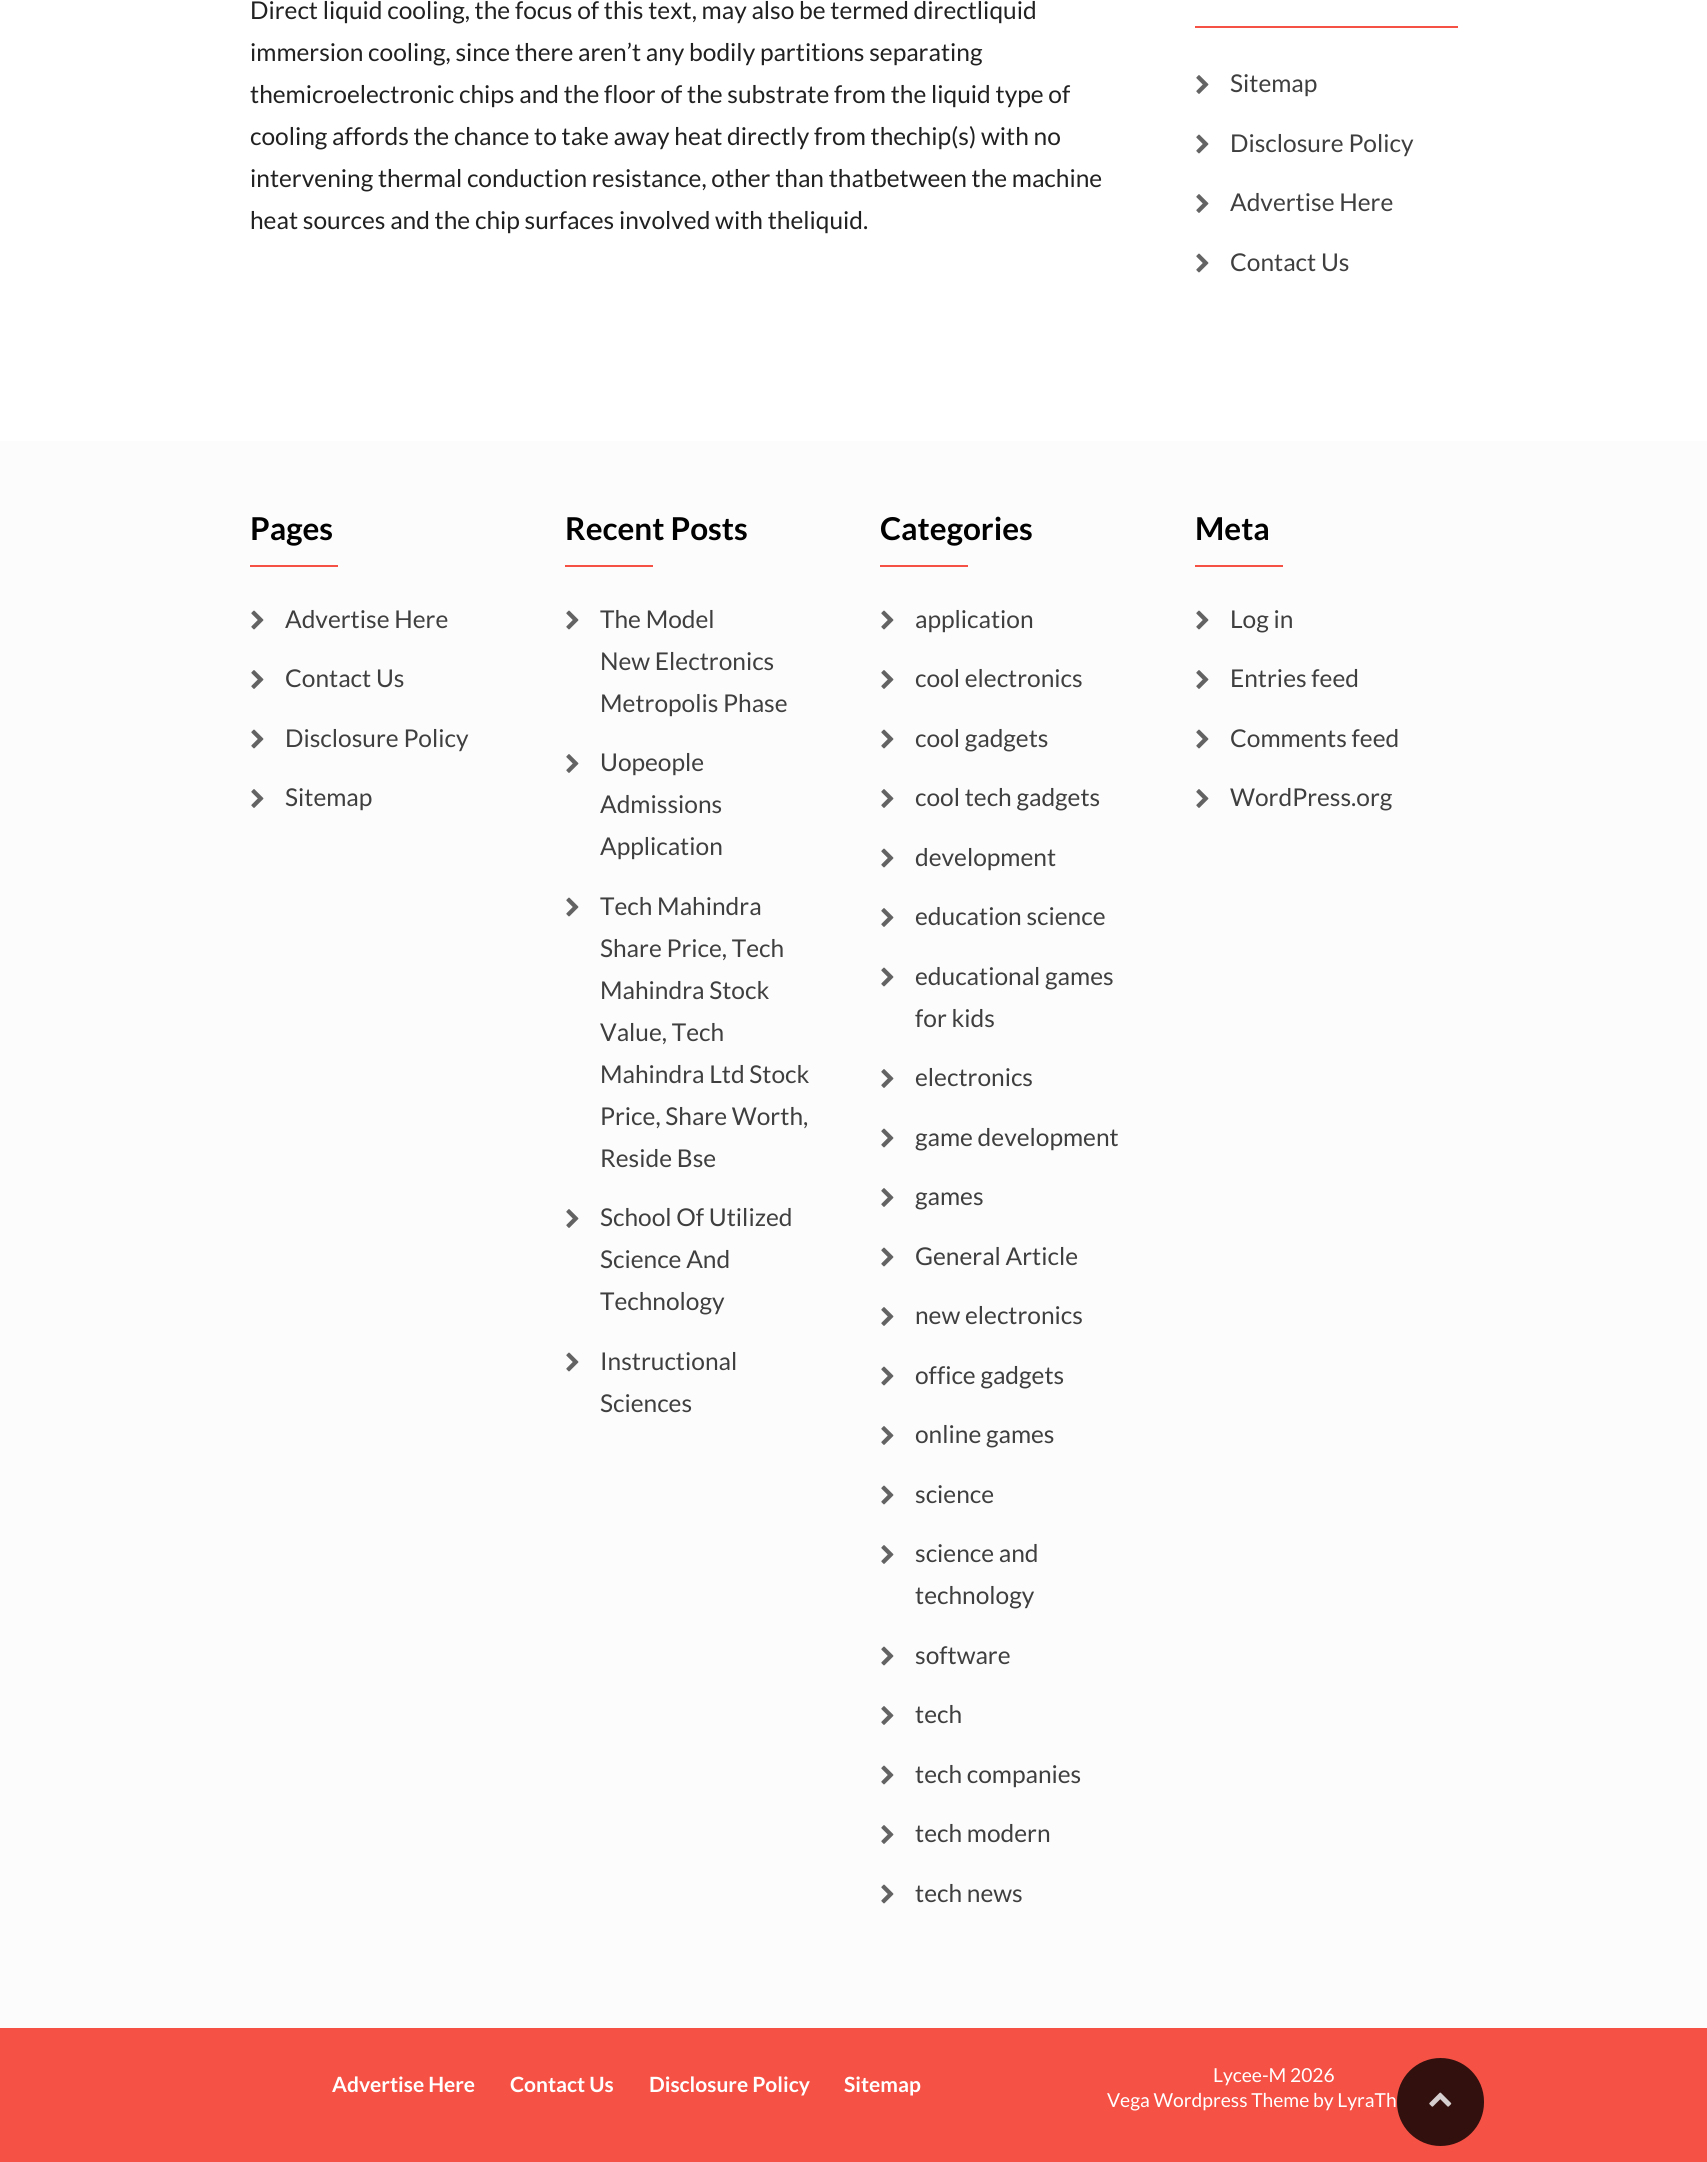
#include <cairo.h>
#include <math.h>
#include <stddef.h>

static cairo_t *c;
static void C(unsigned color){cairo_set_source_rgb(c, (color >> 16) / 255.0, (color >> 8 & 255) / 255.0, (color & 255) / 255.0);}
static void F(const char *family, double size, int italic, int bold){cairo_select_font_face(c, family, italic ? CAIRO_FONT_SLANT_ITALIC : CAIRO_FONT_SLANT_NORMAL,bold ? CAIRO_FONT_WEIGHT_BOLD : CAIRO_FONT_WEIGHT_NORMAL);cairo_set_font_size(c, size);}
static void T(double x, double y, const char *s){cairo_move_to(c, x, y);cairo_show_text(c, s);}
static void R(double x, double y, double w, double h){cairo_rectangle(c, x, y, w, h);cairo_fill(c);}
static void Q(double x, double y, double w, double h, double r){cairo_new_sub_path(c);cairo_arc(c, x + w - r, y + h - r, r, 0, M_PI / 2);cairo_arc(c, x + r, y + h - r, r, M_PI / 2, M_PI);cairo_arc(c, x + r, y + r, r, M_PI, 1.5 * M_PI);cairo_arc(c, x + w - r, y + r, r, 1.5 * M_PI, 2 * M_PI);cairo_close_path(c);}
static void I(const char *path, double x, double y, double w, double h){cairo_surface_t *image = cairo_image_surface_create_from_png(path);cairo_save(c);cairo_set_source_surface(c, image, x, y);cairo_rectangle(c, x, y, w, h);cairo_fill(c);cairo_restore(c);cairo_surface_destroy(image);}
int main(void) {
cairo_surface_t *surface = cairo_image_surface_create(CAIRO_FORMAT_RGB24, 1707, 2162);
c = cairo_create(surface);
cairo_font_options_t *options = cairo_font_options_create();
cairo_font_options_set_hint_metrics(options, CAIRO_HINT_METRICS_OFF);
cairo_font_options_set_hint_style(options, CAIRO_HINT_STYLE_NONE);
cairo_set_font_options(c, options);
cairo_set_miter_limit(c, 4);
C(0xffffff);
cairo_paint(c);
F("Lato",24.5,0,0);
C(0x212121);
T(250,19,"Direct liquid cooling, the focus of this text, may also be termed directliquid");
T(250,61,"immersion cooling, since there aren’t any bodily partitions separating");
T(250,103,"themicroelectronic chips and the floor of the substrate from the liquid type of");
T(250,145,"cooling affords the chance to take away heat directly from thechip(s) with no");
T(250,187,"intervening thermal conduction resistance, other than thatbetween the machine");
T(250,229,"heat sources and the chip surfaces involved with theliquid.");
C(0xf55145);
R(1195,26,263,2);
I("1.png",1196,75,13,19);
C(0x3f3f3f);
T(1230,92,"Sitemap");
I("2.png",1196,134,13,20);
T(1230,152,"Disclosure Policy");
I("1.png",1196,194,13,19);
T(1230,211,"Advertise Here");
I("2.png",1196,253,13,20);
T(1230,271,"Contact Us");
C(0xfcfcfc);
R(0,441,1707,1587);
F("Lato",31.5,0,1);
C(0x010101);
T(250,540,"Pages");
C(0xf55145);
R(250,565,88,2);
I("3.png",251,610,13,20);
F("Lato",24.5,0,0);
C(0x3f3f3f);
T(285,628,"Advertise Here");
I("4.png",251,670,13,19);
T(285,687,"Contact Us");
I("3.png",251,729,13,20);
T(285,747,"Disclosure Policy");
I("4.png",251,789,13,19);
T(285,806,"Sitemap");
F("Lato",31.5,0,1);
C(0x010101);
T(565,540,"Recent Posts");
C(0xf55145);
R(565,565,88,2);
I("3.png",566,610,13,20);
F("Lato",24.5,0,0);
C(0x3f3f3f);
T(600,628,"The Model");
T(600,670,"New Electronics");
T(600,712,"Metropolis Phase");
I("4.png",566,754,13,19);
T(600,771,"Uopeople");
T(600,813,"Admissions");
T(600,855,"Application");
I("3.png",566,897,13,20);
T(600,915,"Tech Mahindra");
T(600,957,"Share Price, Tech");
T(600,999,"Mahindra Stock");
T(600,1041,"Value, Tech");
T(600,1083,"Mahindra Ltd Stock");
T(600,1125,"Price, Share Worth,");
T(600,1167,"Reside Bse");
I("4.png",566,1209,13,19);
T(600,1226,"School Of Utilized");
T(600,1268,"Science And");
T(600,1310,"Technology");
I("3.png",566,1352,13,20);
T(600,1370,"Instructional");
T(600,1412,"Sciences");
F("Lato",31.5,0,1);
C(0x010101);
T(880,540,"Categories");
C(0xf55145);
R(880,565,88,2);
I("3.png",881,610,13,20);
F("Lato",24.5,0,0);
C(0x3f3f3f);
T(915,628,"application");
I("4.png",881,670,13,19);
T(915,687,"cool electronics");
I("3.png",881,729,13,20);
T(915,747,"cool gadgets");
I("4.png",881,789,13,19);
T(915,806,"cool tech gadgets");
I("3.png",881,848,13,20);
T(915,866,"development");
I("4.png",881,908,13,19);
T(915,925,"education science");
I("3.png",881,967,13,20);
T(915,985,"educational games");
T(915,1027,"for kids");
I("4.png",881,1069,13,19);
T(915,1086,"electronics");
I("3.png",881,1128,13,20);
T(915,1146,"game development");
I("4.png",881,1188,13,19);
T(915,1205,"games");
I("3.png",881,1247,13,20);
T(915,1265,"General Article");
I("4.png",881,1307,13,19);
T(915,1324,"new electronics");
I("3.png",881,1366,13,20);
T(915,1384,"office gadgets");
I("4.png",881,1426,13,19);
T(915,1443,"online games");
I("3.png",881,1485,13,20);
T(915,1503,"science");
I("4.png",881,1545,13,19);
T(915,1562,"science and");
T(915,1604,"technology");
I("3.png",881,1646,13,20);
T(915,1664,"software");
I("4.png",881,1706,13,19);
T(915,1723,"tech");
I("3.png",881,1765,13,20);
T(915,1783,"tech companies");
I("4.png",881,1825,13,19);
T(915,1842,"tech modern");
I("3.png",881,1884,13,20);
T(915,1902,"tech news");
F("Lato",31.5,0,1);
C(0x010101);
T(1195,540,"Meta");
C(0xf55145);
R(1195,565,88,2);
I("3.png",1196,610,13,20);
F("Lato",24.5,0,0);
C(0x3f3f3f);
T(1230,628,"Log in");
I("4.png",1196,670,13,19);
T(1230,687,"Entries feed");
I("3.png",1196,729,13,20);
T(1230,747,"Comments feed");
I("4.png",1196,789,13,19);
T(1230,806,"WordPress.org");
C(0xf55145);
R(0,2028,1707,134);
F("Lato",21,0,1);
C(0xffffff);
T(332,2092,"Advertise Here");
T(510,2092,"Contact Us");
T(649,2092,"Disclosure Policy");
T(844,2092,"Sitemap");
F("Lato",19.25,0,0);
T(1213,2082,"Lycee-M 2026");
T(1107,2107,"Vega Wordpress Theme by LyraTh");
cairo_set_source_rgba(c,0,0,0,0.8);
Q(1397,2058,87,88,43.5);
cairo_fill(c);
I("5.png",1429,2092,23,15);
cairo_surface_write_to_png(surface, "o.png");
cairo_font_options_destroy(options);
cairo_destroy(c);
cairo_surface_destroy(surface);
return 0;
}
